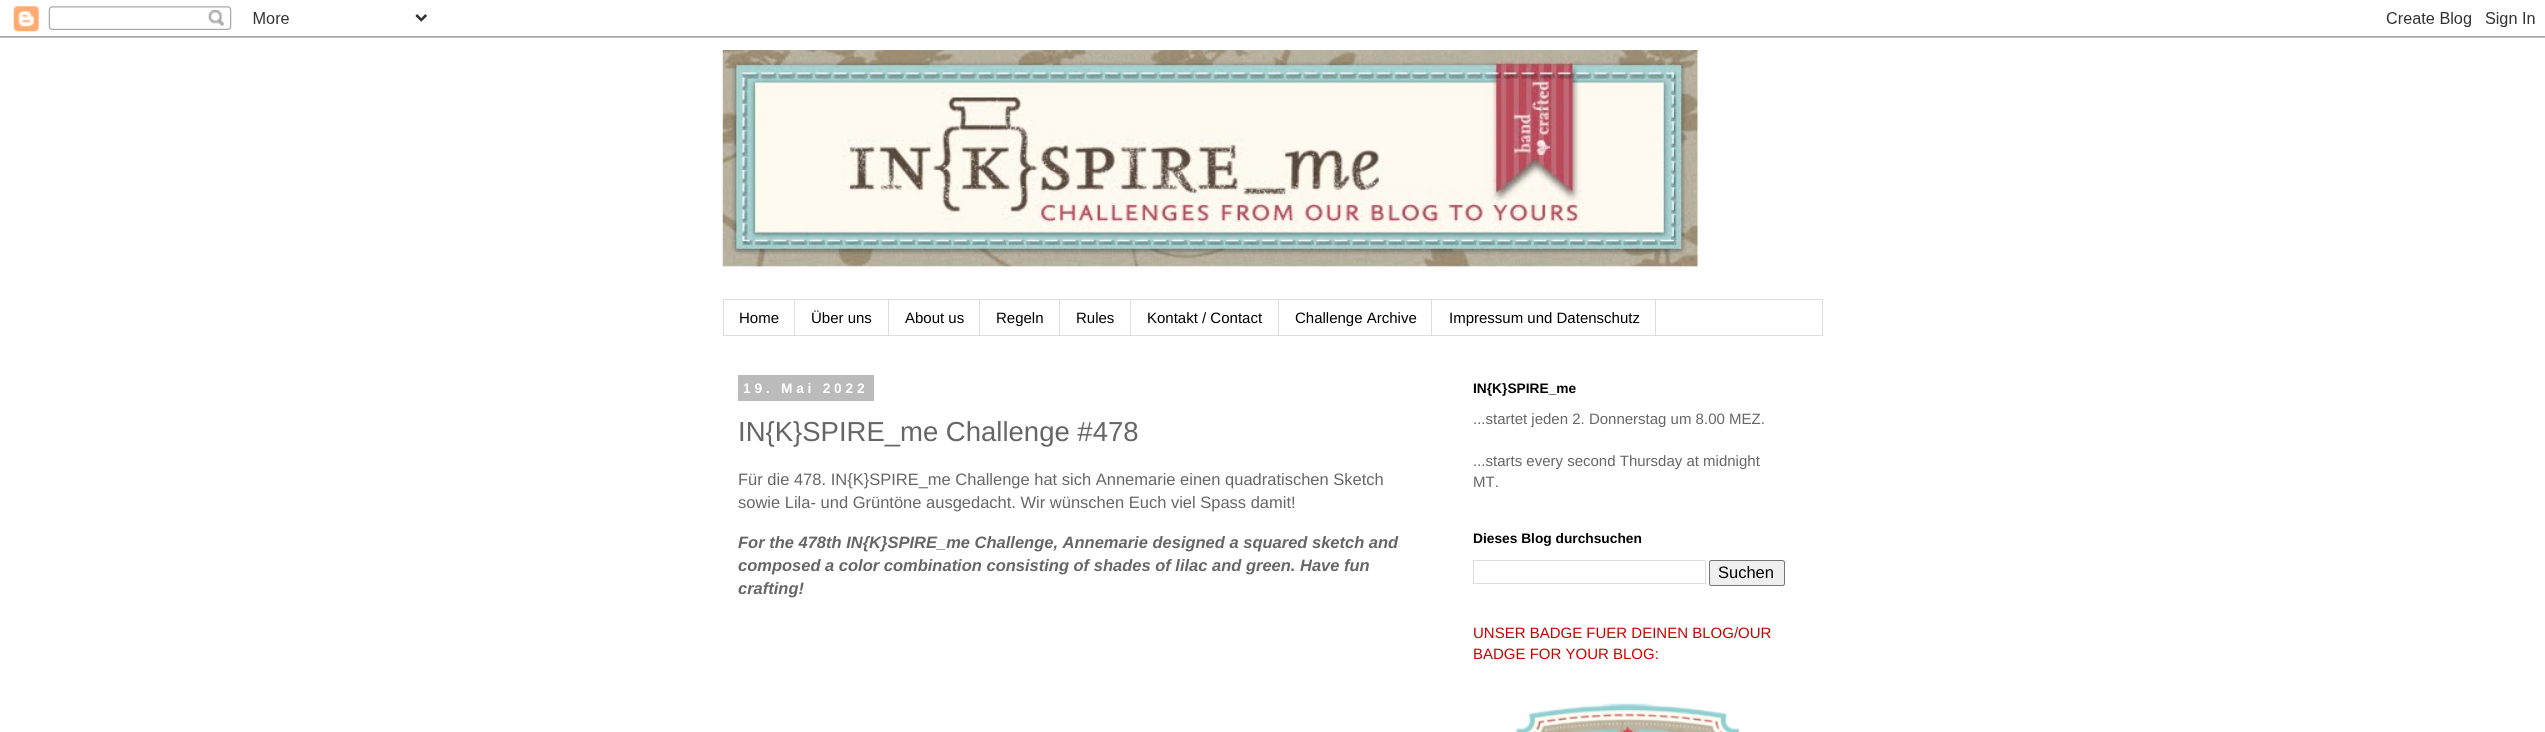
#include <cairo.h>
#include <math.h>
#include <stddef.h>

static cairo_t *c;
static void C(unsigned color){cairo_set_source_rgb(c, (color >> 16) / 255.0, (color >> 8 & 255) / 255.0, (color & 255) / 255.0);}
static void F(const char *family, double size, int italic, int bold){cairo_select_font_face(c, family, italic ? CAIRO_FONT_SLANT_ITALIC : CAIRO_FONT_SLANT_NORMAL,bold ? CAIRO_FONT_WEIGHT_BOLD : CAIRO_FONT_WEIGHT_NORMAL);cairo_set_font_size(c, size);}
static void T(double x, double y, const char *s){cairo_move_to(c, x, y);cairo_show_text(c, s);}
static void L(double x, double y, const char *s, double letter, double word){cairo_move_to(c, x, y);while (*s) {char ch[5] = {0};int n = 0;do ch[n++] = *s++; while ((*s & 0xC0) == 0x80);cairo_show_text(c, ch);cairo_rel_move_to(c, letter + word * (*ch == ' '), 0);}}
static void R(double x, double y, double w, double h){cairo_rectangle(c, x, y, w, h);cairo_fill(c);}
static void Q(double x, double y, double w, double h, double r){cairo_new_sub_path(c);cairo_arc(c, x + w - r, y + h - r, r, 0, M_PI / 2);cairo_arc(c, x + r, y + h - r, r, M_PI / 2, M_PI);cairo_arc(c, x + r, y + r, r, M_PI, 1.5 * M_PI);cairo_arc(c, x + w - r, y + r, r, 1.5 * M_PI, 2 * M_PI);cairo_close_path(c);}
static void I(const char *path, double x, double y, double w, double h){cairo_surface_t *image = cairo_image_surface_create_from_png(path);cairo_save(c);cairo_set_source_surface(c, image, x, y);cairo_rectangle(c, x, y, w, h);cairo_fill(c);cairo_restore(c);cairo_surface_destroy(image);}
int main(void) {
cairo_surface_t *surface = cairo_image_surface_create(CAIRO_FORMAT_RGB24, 2545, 732);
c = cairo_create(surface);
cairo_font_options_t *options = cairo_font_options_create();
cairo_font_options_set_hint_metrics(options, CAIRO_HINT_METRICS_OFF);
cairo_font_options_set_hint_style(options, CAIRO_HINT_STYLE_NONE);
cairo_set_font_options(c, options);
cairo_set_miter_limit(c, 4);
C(0xffffff);
cairo_paint(c);
I("1.png",0,6,2545,32);
I("2.png",722,50,976,220);
cairo_rectangle(c,723.5,299.5,1099,36);
C(0xdddddd);
cairo_set_line_width(c,1);
cairo_stroke(c);
R(794,300,1,35);
F("Liberation Sans",15,0,0);
C(0x000000);
T(739,323,"Home");
C(0xdddddd);
R(888,300,1,35);
C(0x000000);
T(811,323,"Über uns");
C(0xdddddd);
R(979,300,1,35);
C(0x000000);
T(905,323,"About us");
C(0xdddddd);
R(1059,300,1,35);
C(0x000000);
T(996,323,"Regeln");
C(0xdddddd);
R(1130,300,1,35);
C(0x000000);
T(1076,323,"Rules");
C(0xdddddd);
R(1278,300,1,35);
C(0x000000);
T(1147,323,"Kontakt / Contact");
C(0xdddddd);
R(1431,300,1,35);
C(0x000000);
T(1295,323,"Challenge Archive");
C(0xdddddd);
R(1655,300,1,35);
C(0x000000);
T(1449,323,"Impressum und Datenschutz");
C(0xbbbbbb);
R(738,375,136,26);
F("Liberation Sans",13.75,0,1);
C(0xffffff);
L(743,393,"19. Mai 2022",3.75,0);
F("Liberation Sans",27.5,0,0);
C(0x666666);
T(738,441,"IN{K}SPIRE_me Challenge #478");
F("Liberation Sans",16.5,0,0);
T(738,485,"Für die 478. IN{K}SPIRE_me Challenge hat sich Annemarie einen quadratischen Sketch");
T(738,508,"sowie Lila- und Grüntöne ausgedacht. Wir wünschen Euch viel Spass damit!");
F("Liberation Sans",16.5,1,1);
T(738,548,"For the 478th IN{K}SPIRE_me Challenge, Annemarie designed a squared sketch and");
T(738,571,"composed a color combination consisting of shades of lilac and green. Have fun");
T(738,594,"crafting!");
F("Liberation Sans",13.75,0,1);
C(0x000000);
T(1473,393,"IN{K}SPIRE_me");
F("Liberation Sans",15,0,0);
C(0x666666);
T(1473,424,"...startet jeden 2. Donnerstag um 8.00 MEZ.");
T(1473,466,"...starts every second Thursday at midnight");
T(1473,487,"MT.");
F("Liberation Sans",13.75,0,1);
C(0x000000);
T(1473,543,"Dieses Blog durchsuchen");
cairo_rectangle(c,1473.5,560.5,232,23);
C(0xdddddd);
cairo_stroke(c);
C(0xefefef);
Q(1709.5,560.5,75,25,2);
cairo_fill_preserve(c);
C(0x767676);
cairo_stroke(c);
F("Liberation Sans",16.5,0,0);
C(0x000000);
T(1718,578,"Suchen");
F("Liberation Sans",15,0,0);
C(0xcc0000);
T(1473,638,"UNSER BADGE FUER DEINEN BLOG/OUR");
T(1473,659,"BADGE FOR YOUR BLOG:");
I("3.png",1516,703,224,29);
cairo_surface_write_to_png(surface, "o.png");
cairo_font_options_destroy(options);
cairo_destroy(c);
cairo_surface_destroy(surface);
return 0;
}
